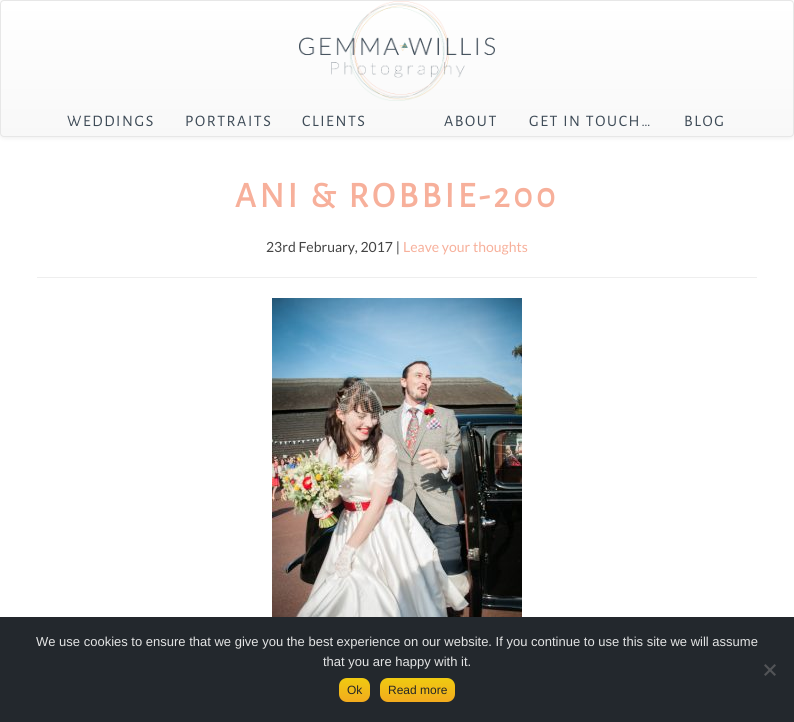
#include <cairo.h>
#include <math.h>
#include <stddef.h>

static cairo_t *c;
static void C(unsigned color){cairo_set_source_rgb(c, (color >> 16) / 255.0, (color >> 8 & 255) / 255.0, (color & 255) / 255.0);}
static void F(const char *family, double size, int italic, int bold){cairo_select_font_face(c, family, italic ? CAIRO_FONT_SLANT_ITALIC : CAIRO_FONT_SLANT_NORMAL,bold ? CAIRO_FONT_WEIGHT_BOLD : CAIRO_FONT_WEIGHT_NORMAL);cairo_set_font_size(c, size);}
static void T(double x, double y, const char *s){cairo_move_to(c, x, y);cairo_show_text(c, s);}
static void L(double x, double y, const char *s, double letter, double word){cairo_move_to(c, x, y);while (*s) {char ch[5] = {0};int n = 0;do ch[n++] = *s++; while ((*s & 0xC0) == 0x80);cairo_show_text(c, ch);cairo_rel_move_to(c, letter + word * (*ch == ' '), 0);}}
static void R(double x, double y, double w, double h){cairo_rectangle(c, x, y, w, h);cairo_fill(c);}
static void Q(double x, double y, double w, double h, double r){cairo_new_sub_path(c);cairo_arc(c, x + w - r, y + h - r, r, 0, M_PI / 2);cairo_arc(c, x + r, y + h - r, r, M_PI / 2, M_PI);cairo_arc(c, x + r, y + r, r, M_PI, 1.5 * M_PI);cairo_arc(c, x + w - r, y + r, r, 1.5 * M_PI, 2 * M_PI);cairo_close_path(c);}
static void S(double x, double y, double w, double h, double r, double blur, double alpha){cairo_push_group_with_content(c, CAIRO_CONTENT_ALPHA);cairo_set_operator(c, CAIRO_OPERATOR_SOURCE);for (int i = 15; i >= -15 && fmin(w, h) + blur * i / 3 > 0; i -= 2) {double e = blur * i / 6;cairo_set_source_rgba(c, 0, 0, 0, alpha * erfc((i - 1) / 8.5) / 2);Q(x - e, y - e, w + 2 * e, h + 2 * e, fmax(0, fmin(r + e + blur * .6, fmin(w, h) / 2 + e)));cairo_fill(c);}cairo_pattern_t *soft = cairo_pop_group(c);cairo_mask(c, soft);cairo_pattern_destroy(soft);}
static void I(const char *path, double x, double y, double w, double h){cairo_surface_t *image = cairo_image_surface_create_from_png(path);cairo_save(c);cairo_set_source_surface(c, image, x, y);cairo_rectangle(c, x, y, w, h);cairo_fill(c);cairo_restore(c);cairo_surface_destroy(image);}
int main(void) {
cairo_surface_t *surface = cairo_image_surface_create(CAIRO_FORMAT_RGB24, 794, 722);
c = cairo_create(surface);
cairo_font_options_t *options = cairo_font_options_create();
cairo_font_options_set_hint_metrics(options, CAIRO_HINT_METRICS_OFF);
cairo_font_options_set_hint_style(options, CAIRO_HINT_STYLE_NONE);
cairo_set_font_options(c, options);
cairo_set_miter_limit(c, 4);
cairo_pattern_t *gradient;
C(0xffffff);
cairo_paint(c);
C(0x000000);
S(0,1,794,137,4,2.5,.07);
cairo_save(c);
Q(0,0,794,137,4);
cairo_clip(c);
gradient = cairo_pattern_create_linear(397,1,397,136);
cairo_pattern_add_color_stop_rgba(gradient,0,1,1,1,1);
cairo_pattern_add_color_stop_rgba(gradient,1,0.973,0.973,0.973,1);
cairo_set_source(c,gradient);
cairo_pattern_destroy(gradient);
R(0,1,794,135);
cairo_restore(c);
Q(.5,.5,793,136,3.5);
C(0xe7e7e7);
cairo_set_line_width(c,1);
cairo_stroke(c);
I("1.png",299,1,196,100);
F("Alegreya Sans",16,0,0);
C(0x3e4b57);
L(67,126,"WEDDINGS",1.6,0);
L(185,126,"PORTRAITS",1.6,0);
L(302,126,"CLIENTS",1.6,0);
L(444,126,"ABOUT",1.6,0);
L(529,126,"GET IN TOUCH…",1.6,0);
L(684,126,"BLOG",1.6,0);
F("Alegreya Sans",36,0,1);
C(0xf7b09b);
L(235,207,"ANI & ROBBIE-200",3.6,0);
F("Lato",14,0,0);
C(0x444444);
T(266,252,"23rd February, 2017 |");
C(0xf7b09b);
T(403,252,"Leave your thoughts");
C(0xeeeeee);
R(37,277,720,1);
I("2.png",272,298,250,319);
C(0x23282d);
R(0,617,794,105);
F("Liberation Sans",13,0,0);
C(0xe3e4e4);
T(36,646,"We use cookies to ensure that we give you the best experience on our website. If you continue to use this site we will assume");
T(323,666,"that you are happy with it.");
C(0x525457);
cairo_new_path(c);
cairo_move_to(c,774.5,664);
cairo_line_to(c,776,665.5);
cairo_line_to(c,765.5,676);
cairo_line_to(c,764,674.5);
cairo_close_path(c);
cairo_fill(c);
cairo_new_path(c);
cairo_move_to(c,764,665.5);
cairo_line_to(c,765.5,664);
cairo_line_to(c,776,674.5);
cairo_line_to(c,774.5,676);
cairo_close_path(c);
cairo_fill(c);
gradient = cairo_pattern_create_linear(355,678,355,702);
cairo_pattern_add_color_stop_rgba(gradient,.05,0.941,0.788,0.067,1);
cairo_pattern_add_color_stop_rgba(gradient,1,0.949,0.671,0.118,1);
cairo_set_source(c,gradient);
cairo_pattern_destroy(gradient);
Q(339,678,31,24,8);
cairo_fill(c);
F("Liberation Sans",12,0,0);
C(0x262626);
T(347,694,"Ok");
gradient = cairo_pattern_create_linear(418,678,418,702);
cairo_pattern_add_color_stop_rgba(gradient,.05,0.941,0.788,0.067,1);
cairo_pattern_add_color_stop_rgba(gradient,1,0.949,0.671,0.118,1);
cairo_set_source(c,gradient);
cairo_pattern_destroy(gradient);
Q(380,678,75,24,8);
cairo_fill(c);
C(0x262626);
T(388,694,"Read more");
cairo_surface_write_to_png(surface, "o.png");
cairo_font_options_destroy(options);
cairo_destroy(c);
cairo_surface_destroy(surface);
return 0;
}
